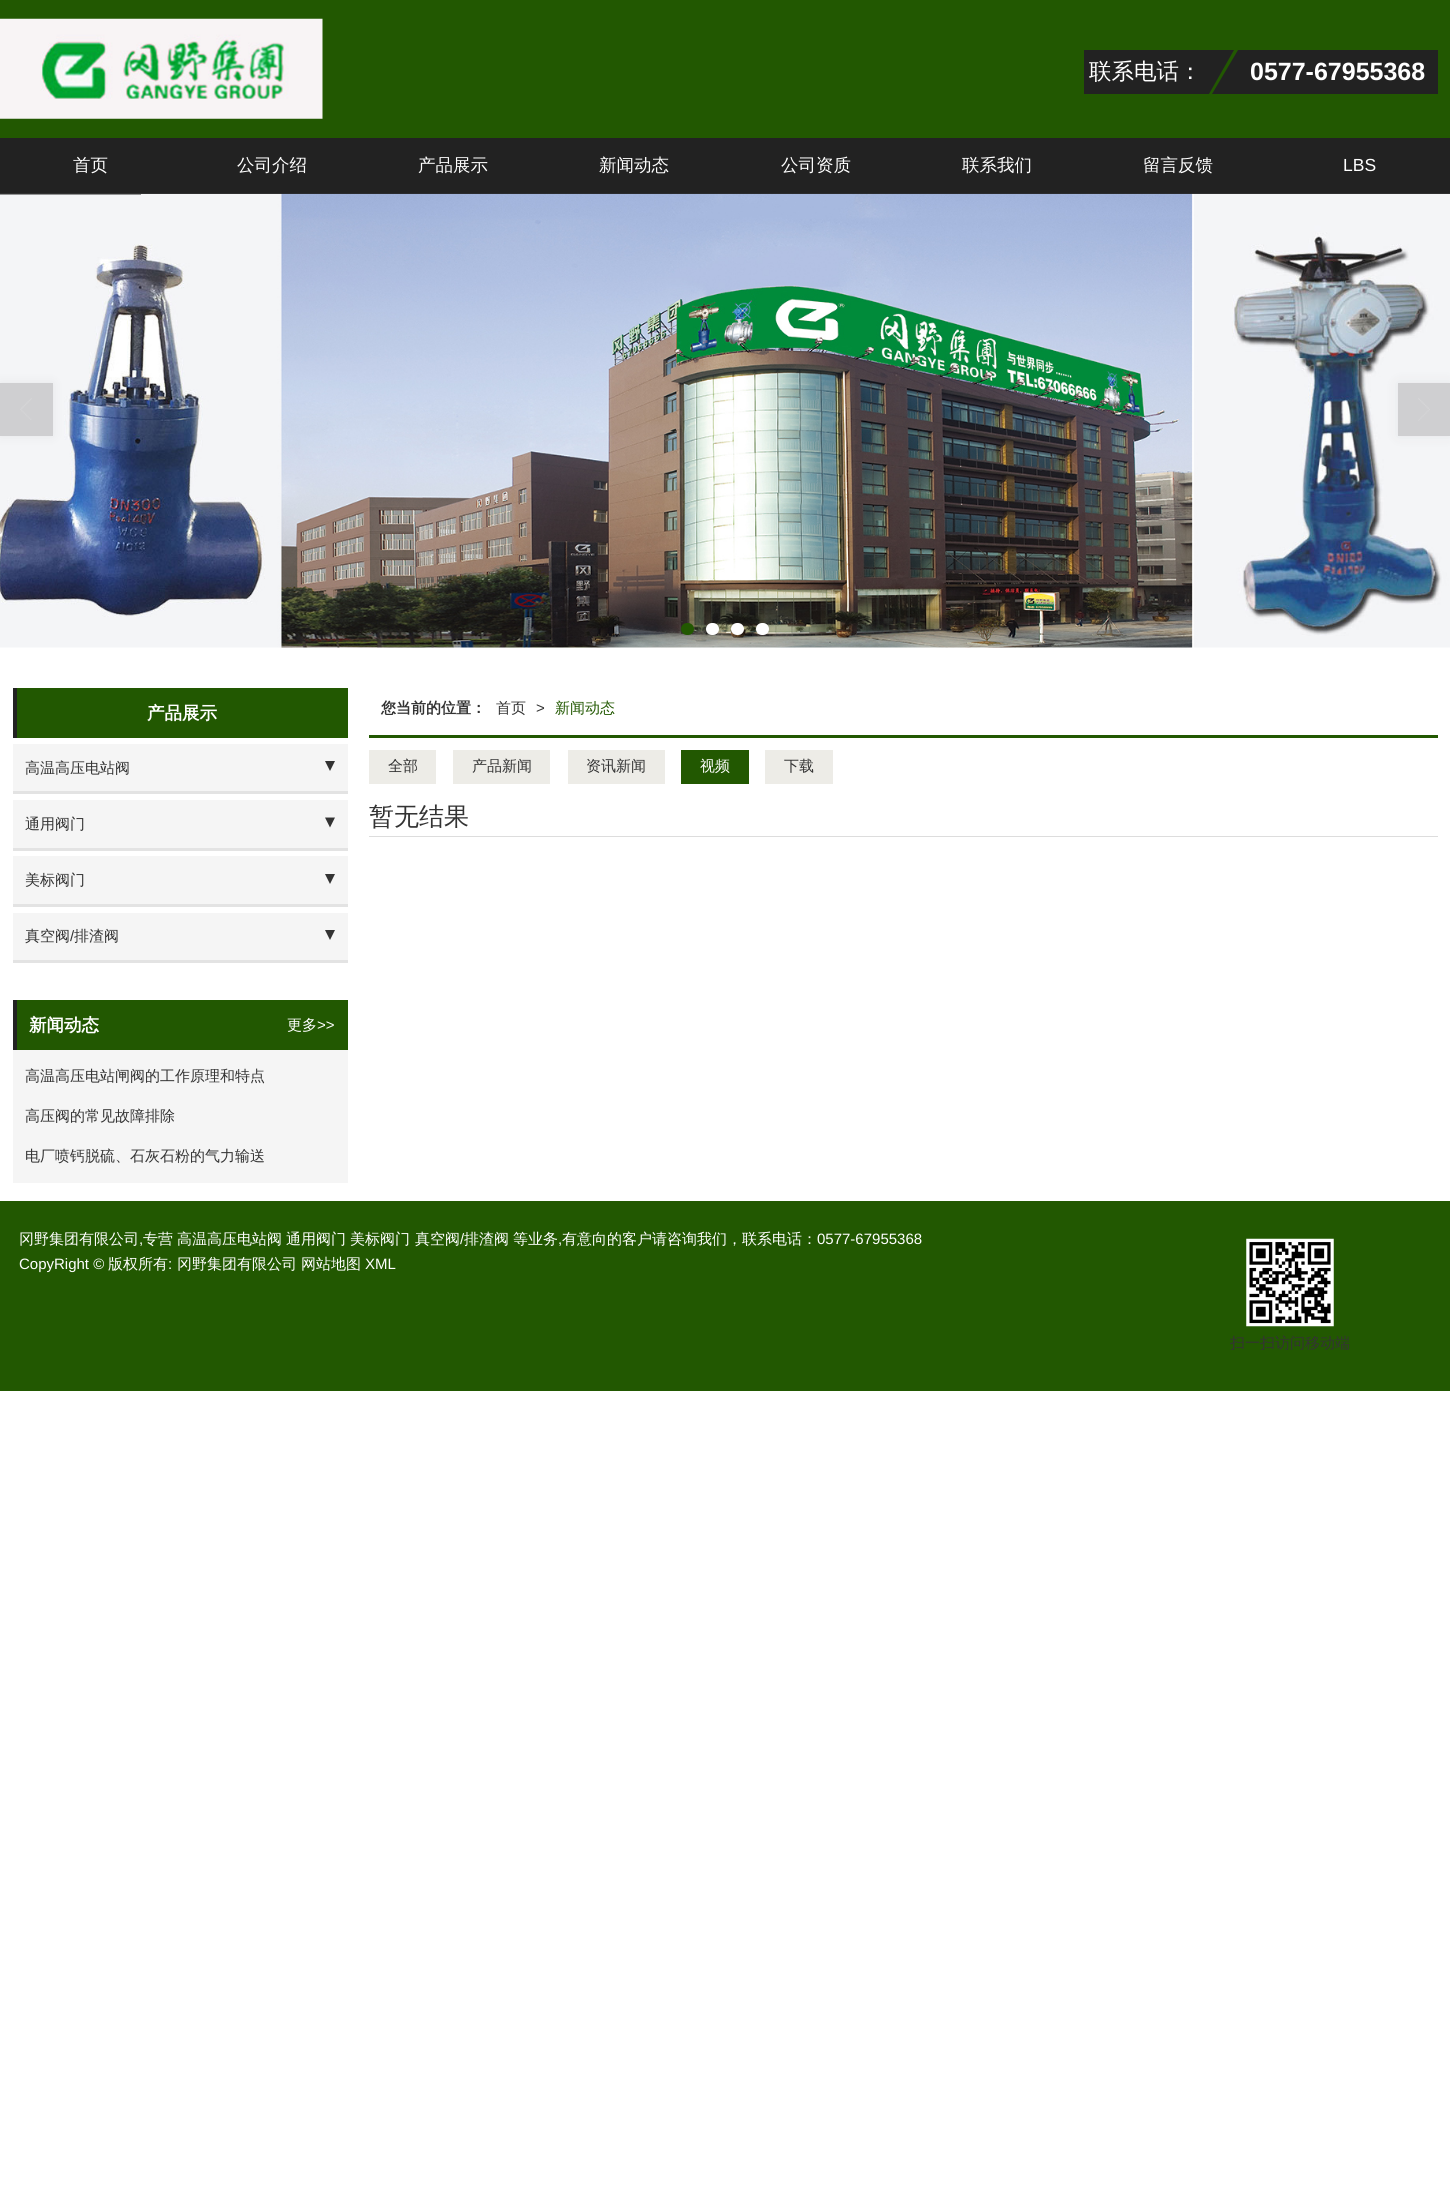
#include <cairo.h>
#include <math.h>
#include <stddef.h>

static cairo_t *c;
static void C(unsigned color){cairo_set_source_rgb(c, (color >> 16) / 255.0, (color >> 8 & 255) / 255.0, (color & 255) / 255.0);}
static void F(const char *family, double size, int italic, int bold){cairo_select_font_face(c, family, italic ? CAIRO_FONT_SLANT_ITALIC : CAIRO_FONT_SLANT_NORMAL,bold ? CAIRO_FONT_WEIGHT_BOLD : CAIRO_FONT_WEIGHT_NORMAL);cairo_set_font_size(c, size);}
static void T(double x, double y, const char *s){cairo_move_to(c, x, y);cairo_show_text(c, s);}
static void R(double x, double y, double w, double h){cairo_rectangle(c, x, y, w, h);cairo_fill(c);}
static void Q(double x, double y, double w, double h, double r){cairo_new_sub_path(c);cairo_arc(c, x + w - r, y + h - r, r, 0, M_PI / 2);cairo_arc(c, x + r, y + h - r, r, M_PI / 2, M_PI);cairo_arc(c, x + r, y + r, r, M_PI, 1.5 * M_PI);cairo_arc(c, x + w - r, y + r, r, 1.5 * M_PI, 2 * M_PI);cairo_close_path(c);}
static void S(double x, double y, double w, double h, double r, double blur, double alpha){cairo_push_group_with_content(c, CAIRO_CONTENT_ALPHA);cairo_set_operator(c, CAIRO_OPERATOR_SOURCE);for (int i = 15; i >= -15 && fmin(w, h) + blur * i / 3 > 0; i -= 2) {double e = blur * i / 6;cairo_set_source_rgba(c, 0, 0, 0, alpha * erfc((i - 1) / 8.5) / 2);Q(x - e, y - e, w + 2 * e, h + 2 * e, fmax(0, fmin(r + e + blur * .6, fmin(w, h) / 2 + e)));cairo_fill(c);}cairo_pattern_t *soft = cairo_pop_group(c);cairo_mask(c, soft);cairo_pattern_destroy(soft);}
static void I(const char *path, double x, double y, double w, double h){cairo_surface_t *image = cairo_image_surface_create_from_png(path);cairo_save(c);cairo_set_source_surface(c, image, x, y);cairo_rectangle(c, x, y, w, h);cairo_fill(c);cairo_restore(c);cairo_surface_destroy(image);}
int main(void) {
cairo_surface_t *surface = cairo_image_surface_create(CAIRO_FORMAT_RGB24, 1450, 2198);
c = cairo_create(surface);
cairo_font_options_t *options = cairo_font_options_create();
cairo_font_options_set_hint_metrics(options, CAIRO_HINT_METRICS_OFF);
cairo_font_options_set_hint_style(options, CAIRO_HINT_STYLE_NONE);
cairo_set_font_options(c, options);
cairo_set_miter_limit(c, 4);
C(0xffffff);
cairo_paint(c);
C(0x225801);
R(0,0,1450,138);
I("1.png",0,18,323,101);
C(0x222222);
R(1084,50,125,44);
F("WenQuanYi Zen Hei Medium",22.5,0,0);
C(0xffffff);
T(1089,79,"联系电话：");
C(0x222222);
cairo_new_path(c);
cairo_move_to(c,1209,50);
cairo_line_to(c,1234,50);
cairo_line_to(c,1209,94);
cairo_close_path(c);
cairo_fill(c);
R(1238,50,200,44);
cairo_new_path(c);
cairo_move_to(c,1238,94);
cairo_line_to(c,1212,94);
cairo_line_to(c,1238,50);
cairo_close_path(c);
cairo_fill(c);
F("Liberation Sans",25,0,1);
C(0xffffff);
T(1250,80,"0577-67955368");
C(0x222222);
R(0,138,1450,56);
F("WenQuanYi Zen Hei Medium",17.5,0,0);
C(0xffffff);
T(73,171,"首页");
T(237,171,"公司介绍");
T(418,171,"产品展示");
T(599,171,"新闻动态");
T(781,171,"公司资质");
T(962,171,"联系我们");
T(1143,171,"留言反馈");
F("Liberation Sans",17.5,0,0);
T(1343,171,"LBS");
I("2.png",0,193,1450,455);
C(0x929394);
R(0,194,141,1);
C(0x000000);
S(0,383,53,53,0,6,.06);
C(0xcfcfd1);
R(0,383,53,53);
I("3.png",20,398,12,22);
C(0xc3c4c6);
S(1398,383,52,53,0,6,.3);
C(0xcfcfd1);
R(1398,383,52,53);
I("4.png",1418,398,12,23);
C(0x225801);
Q(681,623,13,12,6);
cairo_fill(c);
C(0xffffff);
Q(706,623,13,12,6);
cairo_fill(c);
Q(731,623,13,12,6);
cairo_fill(c);
Q(756,623,13,12,6);
cairo_fill(c);
C(0x225801);
R(17,688,331,50);
C(0x222222);
R(13,688,4,50);
F("WenQuanYi Zen Hei",17.5,0,1);
C(0xffffff);
T(147,719,"产品展示");
C(0xf5f5f5);
R(13,744,335,47);
C(0xe3e3e3);
R(13,791,335,3);
F("WenQuanYi Zen Hei Medium",15,0,0);
C(0x333333);
T(25,773,"高温高压电站阀");
cairo_new_path(c);
cairo_move_to(c,325,761);
cairo_line_to(c,335,761);
cairo_line_to(c,330,771);
cairo_close_path(c);
cairo_fill(c);
C(0xf5f5f5);
R(13,800,335,48);
C(0xe3e3e3);
R(13,848,335,3);
C(0x333333);
T(25,829,"通用阀门");
cairo_new_path(c);
cairo_move_to(c,325,817.5);
cairo_line_to(c,335,817.5);
cairo_line_to(c,330,827.5);
cairo_close_path(c);
cairo_fill(c);
C(0xf5f5f5);
R(13,856,335,48);
C(0xe3e3e3);
R(13,904,335,3);
C(0x333333);
T(25,885,"美标阀门");
cairo_new_path(c);
cairo_move_to(c,325,874);
cairo_line_to(c,335,874);
cairo_line_to(c,330,884);
cairo_close_path(c);
cairo_fill(c);
C(0xf5f5f5);
R(13,913,335,47);
C(0xe3e3e3);
R(13,960,335,3);
C(0x333333);
T(25,941,"真空阀");
F("Liberation Sans",15,0,0);
T(70,941,"/");
F("WenQuanYi Zen Hei Medium",15,0,0);
T(74,941,"排渣阀");
cairo_new_path(c);
cairo_move_to(c,325,930);
cairo_line_to(c,335,930);
cairo_line_to(c,330,940);
cairo_close_path(c);
cairo_fill(c);
C(0x225801);
R(17,1000,331,50);
C(0x222222);
R(13,1000,4,50);
F("WenQuanYi Zen Hei",17.5,0,1);
C(0xffffff);
T(29,1031,"新闻动态");
F("WenQuanYi Zen Hei Medium",15,0,0);
T(287,1030,"更多");
F("Liberation Sans",15,0,0);
T(317,1030,">>");
C(0xf5f5f5);
R(13,1050,335,133);
F("WenQuanYi Zen Hei Medium",15,0,0);
C(0x333333);
T(25,1081,"高温高压电站闸阀的工作原理和特点");
T(25,1121,"高压阀的常见故障排除");
T(25,1161,"电厂喷钙脱硫、石灰石粉的气力输送");
C(0x225801);
R(369,735,1069,3);
F("WenQuanYi Zen Hei",15,0,1);
C(0x333333);
T(381,713,"您当前的位置：");
F("WenQuanYi Zen Hei Medium",15,0,0);
T(496,713,"首页");
F("Liberation Sans",15,0,0);
T(536,713,">");
F("WenQuanYi Zen Hei Medium",15,0,0);
C(0x225801);
T(555,713,"新闻动态");
C(0xedece7);
R(369,750,67,34);
C(0x333333);
T(388,771,"全部");
C(0xedece7);
R(453,750,97,34);
C(0x333333);
T(472,771,"产品新闻");
C(0xedece7);
R(568,750,97,34);
C(0x333333);
T(586,771,"资讯新闻");
C(0x225801);
R(681,750,68,34);
C(0xffffff);
T(700,771,"视频");
C(0xedece7);
R(765,750,68,34);
C(0x333333);
T(784,771,"下载");
C(0xdddddd);
R(369,836,1069,1);
F("WenQuanYi Zen Hei Medium",25,0,0);
C(0x333333);
T(369,825,"暂无结果");
C(0x225801);
R(0,1201,1450,190);
F("WenQuanYi Zen Hei Medium",15,0,0);
C(0xffffff);
T(19,1244,"冈野集团有限公司");
F("Liberation Sans",15,0,0);
T(139,1244,",");
F("WenQuanYi Zen Hei Medium",15,0,0);
T(143,1244,"专营");
T(177,1244,"高温高压电站阀");
T(286,1244,"通用阀门");
T(350,1244,"美标阀门");
T(415,1244,"真空阀");
F("Liberation Sans",15,0,0);
T(460,1244,"/");
F("WenQuanYi Zen Hei Medium",15,0,0);
T(464,1244,"排渣阀");
T(513,1244,"等业务");
F("Liberation Sans",15,0,0);
T(558,1244,",");
F("WenQuanYi Zen Hei Medium",15,0,0);
T(562,1244,"有意向的客户请咨询我们，联系电话：");
F("Liberation Sans",15,0,0);
T(817,1244,"0577-67955368");
T(19,1269,"CopyRight ©");
F("WenQuanYi Zen Hei Medium",15,0,0);
T(108,1269,"版权所有");
F("Liberation Sans",15,0,0);
T(168,1269,":");
F("WenQuanYi Zen Hei Medium",15,0,0);
T(177,1269,"冈野集团有限公司");
T(301,1269,"网站地图");
F("Liberation Sans",15,0,0);
T(365,1269,"XML");
I("5.png",1246,1238,88,89);
F("WenQuanYi Zen Hei Medium",15,0,0);
C(0x333333);
T(1230,1348,"扫一扫访问移动端");
cairo_surface_write_to_png(surface, "o.png");
cairo_font_options_destroy(options);
cairo_destroy(c);
cairo_surface_destroy(surface);
return 0;
}
